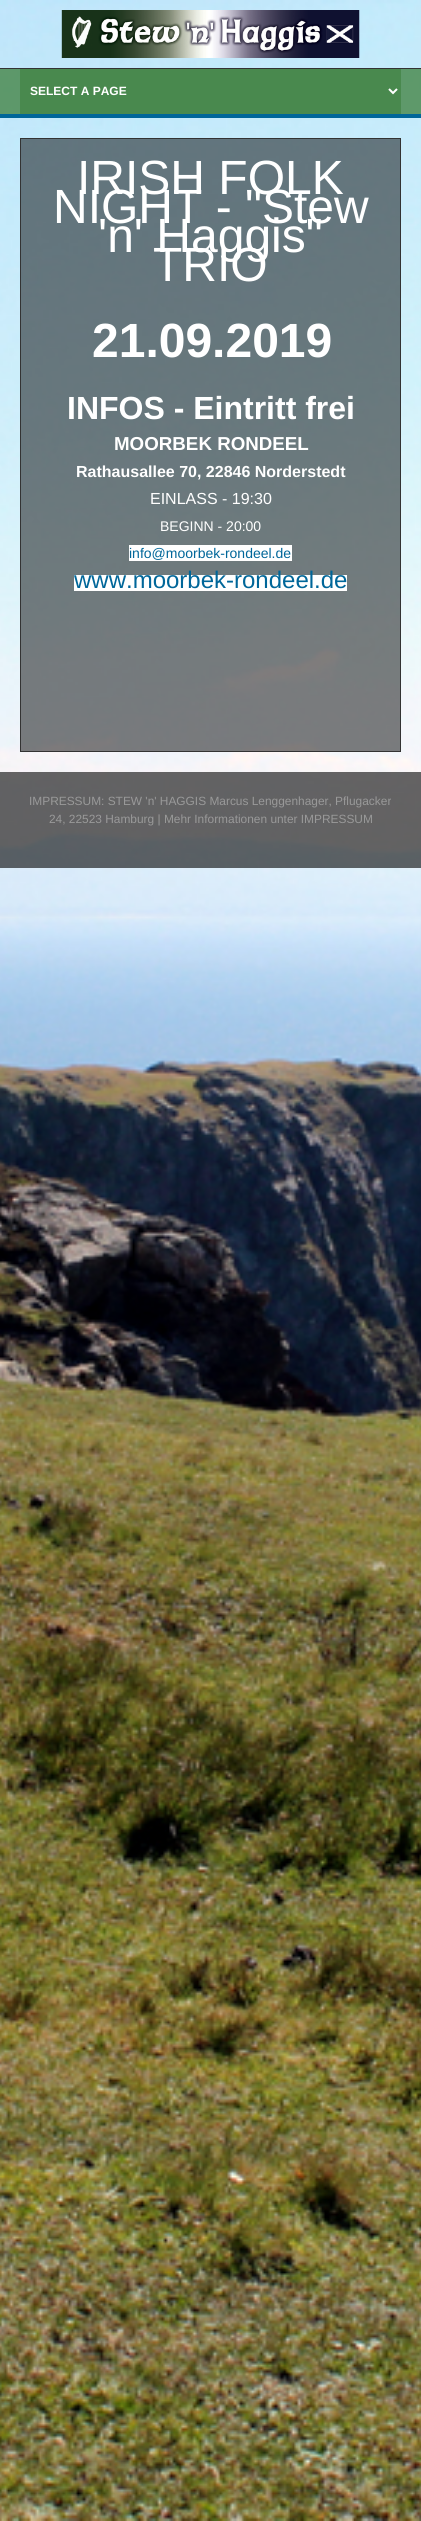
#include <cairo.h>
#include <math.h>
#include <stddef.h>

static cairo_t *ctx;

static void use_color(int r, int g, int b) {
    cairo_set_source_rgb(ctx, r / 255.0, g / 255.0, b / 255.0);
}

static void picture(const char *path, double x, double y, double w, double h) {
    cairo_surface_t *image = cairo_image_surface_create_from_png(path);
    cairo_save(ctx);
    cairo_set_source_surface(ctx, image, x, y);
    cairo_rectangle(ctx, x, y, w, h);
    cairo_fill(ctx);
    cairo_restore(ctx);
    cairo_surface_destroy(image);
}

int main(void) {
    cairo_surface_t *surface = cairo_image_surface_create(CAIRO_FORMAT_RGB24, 421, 2521);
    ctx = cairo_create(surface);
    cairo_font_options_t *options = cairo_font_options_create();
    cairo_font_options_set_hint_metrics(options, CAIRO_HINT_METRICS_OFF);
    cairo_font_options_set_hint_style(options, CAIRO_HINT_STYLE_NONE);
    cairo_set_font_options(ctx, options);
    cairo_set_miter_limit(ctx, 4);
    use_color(255, 255, 255);
    cairo_paint(ctx);
    picture("img1.png", 0, 0, 421, 2521);
    picture("img2.png", 61, 10, 299, 48);
    cairo_set_source_rgba(ctx, 0.267, 0.522, 0.278, 0.8);
    cairo_rectangle(ctx, 0, 69, 421, 45);
    cairo_fill(ctx);
    use_color(51, 51, 51);
    cairo_rectangle(ctx, 0, 68, 421, 1);
    cairo_fill(ctx);
    use_color(0, 102, 153);
    cairo_rectangle(ctx, 0, 114, 421, 4);
    cairo_fill(ctx);
    use_color(73, 137, 78);
    cairo_rectangle(ctx, 20, 69, 381, 45);
    cairo_fill(ctx);
    cairo_new_path(ctx);
    cairo_move_to(ctx, 389, 89);
    cairo_line_to(ctx, 393, 93);
    cairo_line_to(ctx, 397, 89);
    use_color(255, 255, 255);
    cairo_stroke(ctx);
    cairo_select_font_face(ctx, "Liberation Sans", CAIRO_FONT_SLANT_NORMAL, CAIRO_FONT_WEIGHT_BOLD);
    cairo_set_font_size(ctx, 12);
    cairo_move_to(ctx, 30, 95);
    cairo_show_text(ctx, "SELECT A PAGE");
    cairo_set_source_rgba(ctx, 0, 0, 0, 0.5);
    cairo_rectangle(ctx, 20.5, 138.5, 380, 613);
    cairo_fill_preserve(ctx);
    use_color(51, 51, 51);
    cairo_set_line_width(ctx, 1);
    cairo_stroke(ctx);
    cairo_select_font_face(ctx, "Liberation Sans", CAIRO_FONT_SLANT_NORMAL, CAIRO_FONT_WEIGHT_NORMAL);
    cairo_set_font_size(ctx, 48);
    use_color(255, 255, 255);
    cairo_move_to(ctx, 77, 194);
    cairo_show_text(ctx, "IRISH FOLK");
    cairo_move_to(ctx, 53, 223);
    cairo_show_text(ctx, "NIGHT - \"Stew");
    cairo_move_to(ctx, 98, 252);
    cairo_show_text(ctx, "'n' Haggis\"");
    cairo_move_to(ctx, 153, 281);
    cairo_show_text(ctx, "TRIO");
    cairo_select_font_face(ctx, "Liberation Sans", CAIRO_FONT_SLANT_NORMAL, CAIRO_FONT_WEIGHT_BOLD);
    cairo_move_to(ctx, 92, 357);
    cairo_show_text(ctx, "21.09.2019");
    cairo_set_font_size(ctx, 32);
    cairo_move_to(ctx, 67, 419);
    cairo_show_text(ctx, "INFOS - Eintritt frei");
    cairo_set_font_size(ctx, 18.75);
    cairo_move_to(ctx, 114, 450);
    cairo_show_text(ctx, "MOORBEK RONDEEL");
    cairo_set_font_size(ctx, 16);
    cairo_move_to(ctx, 76, 477);
    cairo_show_text(ctx, "Rathausallee 70, 22846 Norderstedt");
    cairo_select_font_face(ctx, "Liberation Sans", CAIRO_FONT_SLANT_NORMAL, CAIRO_FONT_WEIGHT_NORMAL);
    cairo_move_to(ctx, 150, 504);
    cairo_show_text(ctx, "EINLASS - 19:30");
    cairo_set_font_size(ctx, 14);
    cairo_move_to(ctx, 160, 531);
    cairo_show_text(ctx, "BEGINN - 20:00");
    cairo_rectangle(ctx, 129, 545, 163, 16);
    cairo_fill(ctx);
    use_color(0, 102, 153);
    cairo_move_to(ctx, 129, 558);
    cairo_show_text(ctx, "info@moorbek-rondeel.de");
    use_color(255, 255, 255);
    cairo_rectangle(ctx, 74, 575, 273, 16);
    cairo_fill(ctx);
    cairo_set_font_size(ctx, 24);
    use_color(0, 102, 153);
    cairo_move_to(ctx, 74, 588);
    cairo_show_text(ctx, "www.moorbek-rondeel.de");
    cairo_set_source_rgba(ctx, 0, 0, 0, 0.6);
    cairo_rectangle(ctx, 0, 772, 421, 96);
    cairo_fill(ctx);
    cairo_set_font_size(ctx, 11.9);
    use_color(153, 153, 153);
    cairo_move_to(ctx, 29, 805);
    cairo_show_text(ctx, "IMPRESSUM: STEW 'n' HAGGIS Marcus Lenggenhager, Pflugacker");
    cairo_move_to(ctx, 49, 823);
    cairo_show_text(ctx, "24, 22523 Hamburg | Mehr Informationen unter IMPRESSUM");
    cairo_surface_write_to_png(surface, "result.png");
    cairo_font_options_destroy(options);
    cairo_destroy(ctx);
    cairo_surface_destroy(surface);
    return 0;
}
